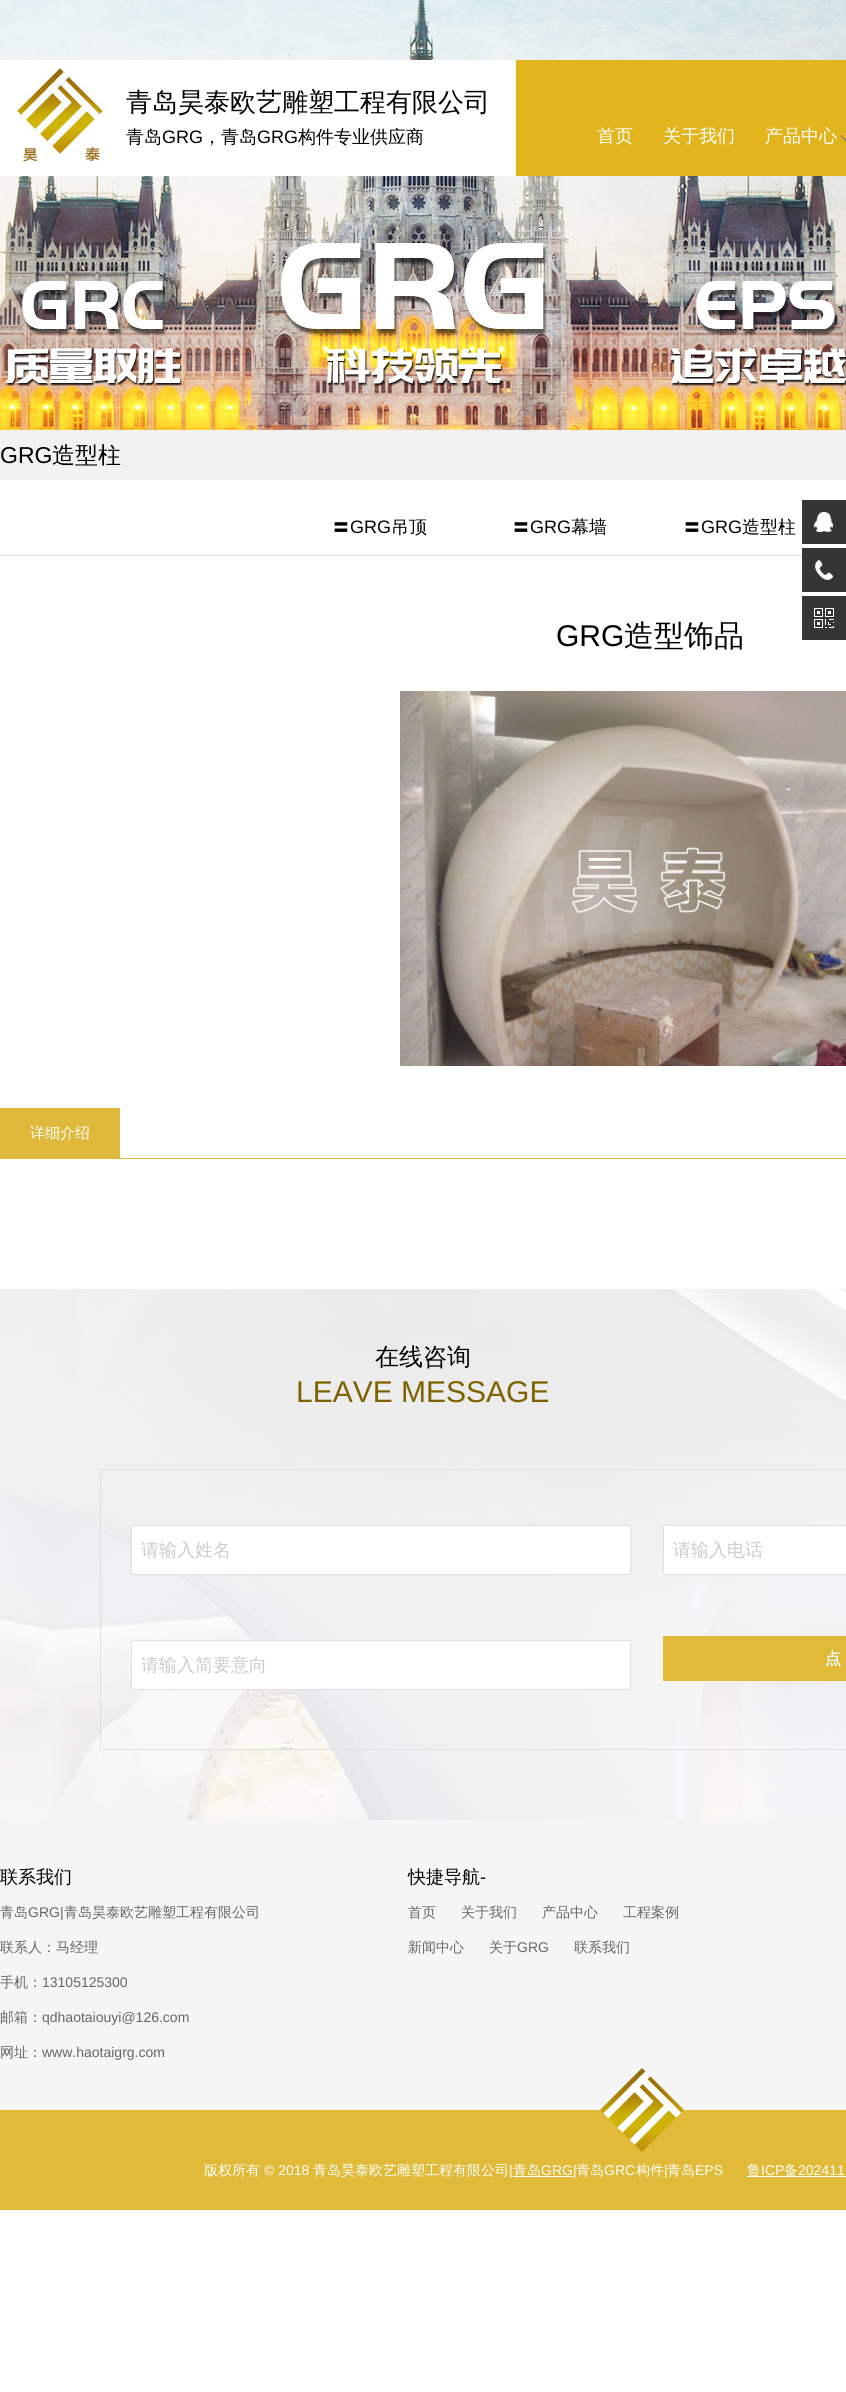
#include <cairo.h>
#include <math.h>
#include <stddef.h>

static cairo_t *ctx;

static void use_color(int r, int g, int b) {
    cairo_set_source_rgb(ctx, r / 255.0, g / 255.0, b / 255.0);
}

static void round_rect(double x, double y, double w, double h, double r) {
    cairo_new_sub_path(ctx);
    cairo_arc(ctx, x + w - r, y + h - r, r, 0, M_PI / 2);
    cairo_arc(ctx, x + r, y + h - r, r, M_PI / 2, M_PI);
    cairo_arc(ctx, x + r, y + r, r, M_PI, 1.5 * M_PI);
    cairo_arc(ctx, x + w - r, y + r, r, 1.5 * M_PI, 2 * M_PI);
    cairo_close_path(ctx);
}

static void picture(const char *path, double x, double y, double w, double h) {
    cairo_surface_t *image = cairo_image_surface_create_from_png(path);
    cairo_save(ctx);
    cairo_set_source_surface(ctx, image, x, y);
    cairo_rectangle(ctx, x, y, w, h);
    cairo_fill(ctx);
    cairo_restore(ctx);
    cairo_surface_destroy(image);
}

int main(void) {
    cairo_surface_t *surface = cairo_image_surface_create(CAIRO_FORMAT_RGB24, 846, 2392);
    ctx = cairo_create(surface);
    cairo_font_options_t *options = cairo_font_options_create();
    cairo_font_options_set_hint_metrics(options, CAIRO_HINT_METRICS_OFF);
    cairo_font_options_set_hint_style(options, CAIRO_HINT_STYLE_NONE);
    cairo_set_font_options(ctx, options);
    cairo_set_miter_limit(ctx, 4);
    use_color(255, 255, 255);
    cairo_paint(ctx);
    picture("img1.png", 0, 0, 846, 430);
    picture("img2.png", 0, 60, 846, 116);
    picture("img3.png", 16, 68, 88, 96);
    cairo_select_font_face(ctx, "WenQuanYi Zen Hei Medium", CAIRO_FONT_SLANT_NORMAL, CAIRO_FONT_WEIGHT_NORMAL);
    cairo_set_font_size(ctx, 26);
    use_color(0, 0, 0);
    cairo_move_to(ctx, 126, 111);
    cairo_show_text(ctx, "青岛昊泰欧艺雕塑工程有限公司");
    cairo_set_font_size(ctx, 18);
    cairo_move_to(ctx, 126, 143);
    cairo_show_text(ctx, "青岛");
    cairo_select_font_face(ctx, "Liberation Sans", CAIRO_FONT_SLANT_NORMAL, CAIRO_FONT_WEIGHT_NORMAL);
    cairo_move_to(ctx, 162, 143);
    cairo_show_text(ctx, "GRG");
    cairo_select_font_face(ctx, "WenQuanYi Zen Hei Medium", CAIRO_FONT_SLANT_NORMAL, CAIRO_FONT_WEIGHT_NORMAL);
    cairo_move_to(ctx, 203, 143);
    cairo_show_text(ctx, "，青岛");
    cairo_select_font_face(ctx, "Liberation Sans", CAIRO_FONT_SLANT_NORMAL, CAIRO_FONT_WEIGHT_NORMAL);
    cairo_move_to(ctx, 257, 143);
    cairo_show_text(ctx, "GRG");
    cairo_select_font_face(ctx, "WenQuanYi Zen Hei Medium", CAIRO_FONT_SLANT_NORMAL, CAIRO_FONT_WEIGHT_NORMAL);
    cairo_move_to(ctx, 298, 143);
    cairo_show_text(ctx, "构件专业供应商");
    use_color(255, 255, 255);
    cairo_move_to(ctx, 597, 142);
    cairo_show_text(ctx, "首页");
    cairo_move_to(ctx, 663, 142);
    cairo_show_text(ctx, "关于我们");
    cairo_move_to(ctx, 765, 142);
    cairo_show_text(ctx, "产品中心");
    picture("img4.png", 840, 135, 6, 6);
    use_color(242, 242, 242);
    cairo_rectangle(ctx, 0, 430, 846, 50);
    cairo_fill(ctx);
    cairo_select_font_face(ctx, "Liberation Sans", CAIRO_FONT_SLANT_NORMAL, CAIRO_FONT_WEIGHT_NORMAL);
    cairo_set_font_size(ctx, 23);
    use_color(0, 0, 0);
    cairo_move_to(ctx, 0, 463);
    cairo_show_text(ctx, "GRG");
    cairo_select_font_face(ctx, "WenQuanYi Zen Hei Medium", CAIRO_FONT_SLANT_NORMAL, CAIRO_FONT_WEIGHT_NORMAL);
    cairo_move_to(ctx, 52, 463);
    cairo_show_text(ctx, "造型柱");
    use_color(221, 221, 221);
    cairo_rectangle(ctx, 0, 555, 802, 1);
    cairo_fill(ctx);
    cairo_set_font_size(ctx, 18);
    use_color(0, 0, 0);
    cairo_move_to(ctx, 332, 533);
    cairo_show_text(ctx, "〓");
    cairo_select_font_face(ctx, "Liberation Sans", CAIRO_FONT_SLANT_NORMAL, CAIRO_FONT_WEIGHT_NORMAL);
    cairo_move_to(ctx, 350, 533);
    cairo_show_text(ctx, "GRG");
    cairo_select_font_face(ctx, "WenQuanYi Zen Hei Medium", CAIRO_FONT_SLANT_NORMAL, CAIRO_FONT_WEIGHT_NORMAL);
    cairo_move_to(ctx, 391, 533);
    cairo_show_text(ctx, "吊顶");
    cairo_move_to(ctx, 512, 533);
    cairo_show_text(ctx, "〓");
    cairo_select_font_face(ctx, "Liberation Sans", CAIRO_FONT_SLANT_NORMAL, CAIRO_FONT_WEIGHT_NORMAL);
    cairo_move_to(ctx, 530, 533);
    cairo_show_text(ctx, "GRG");
    cairo_select_font_face(ctx, "WenQuanYi Zen Hei Medium", CAIRO_FONT_SLANT_NORMAL, CAIRO_FONT_WEIGHT_NORMAL);
    cairo_move_to(ctx, 571, 533);
    cairo_show_text(ctx, "幕墙");
    cairo_move_to(ctx, 683, 533);
    cairo_show_text(ctx, "〓");
    cairo_select_font_face(ctx, "Liberation Sans", CAIRO_FONT_SLANT_NORMAL, CAIRO_FONT_WEIGHT_NORMAL);
    cairo_move_to(ctx, 701, 533);
    cairo_show_text(ctx, "GRG");
    cairo_select_font_face(ctx, "WenQuanYi Zen Hei Medium", CAIRO_FONT_SLANT_NORMAL, CAIRO_FONT_WEIGHT_NORMAL);
    cairo_move_to(ctx, 742, 533);
    cairo_show_text(ctx, "造型柱");
    use_color(53, 53, 53);
    cairo_rectangle(ctx, 802, 500, 44, 44);
    cairo_fill(ctx);
    picture("img5.png", 814, 512, 19, 20);
    cairo_rectangle(ctx, 802, 548, 44, 44);
    cairo_fill(ctx);
    picture("img6.png", 815, 560, 18, 20);
    cairo_rectangle(ctx, 802, 596, 44, 44);
    cairo_fill(ctx);
    picture("img7.png", 814, 608, 20, 20);
    cairo_select_font_face(ctx, "Liberation Sans", CAIRO_FONT_SLANT_NORMAL, CAIRO_FONT_WEIGHT_NORMAL);
    cairo_set_font_size(ctx, 30);
    use_color(0, 0, 0);
    cairo_move_to(ctx, 556, 646);
    cairo_show_text(ctx, "GRG");
    cairo_select_font_face(ctx, "WenQuanYi Zen Hei Medium", CAIRO_FONT_SLANT_NORMAL, CAIRO_FONT_WEIGHT_NORMAL);
    cairo_move_to(ctx, 624, 646);
    cairo_show_text(ctx, "造型饰品");
    picture("img8.png", 400, 691, 446, 375);
    use_color(223, 185, 60);
    cairo_rectangle(ctx, 0, 1108, 120, 50);
    cairo_fill(ctx);
    cairo_set_font_size(ctx, 15);
    use_color(255, 255, 255);
    cairo_move_to(ctx, 30, 1138);
    cairo_show_text(ctx, "详细介绍");
    use_color(223, 185, 60);
    cairo_rectangle(ctx, 0, 1158, 846, 1);
    cairo_fill(ctx);
    picture("img9.png", 0, 1289, 846, 531);
    cairo_set_font_size(ctx, 24);
    use_color(0, 0, 0);
    cairo_move_to(ctx, 375, 1365);
    cairo_show_text(ctx, "在线咨询");
    cairo_select_font_face(ctx, "Liberation Sans", CAIRO_FONT_SLANT_NORMAL, CAIRO_FONT_WEIGHT_NORMAL);
    cairo_set_font_size(ctx, 30);
    use_color(126, 98, 0);
    cairo_move_to(ctx, 296, 1402);
    cairo_show_text(ctx, "LEAVE MESSAGE");
    cairo_rectangle(ctx, 100.5, 1469.5, 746, 280);
    use_color(224, 224, 224);
    cairo_set_line_width(ctx, 1);
    cairo_stroke(ctx);
    use_color(255, 255, 255);
    round_rect(131.5, 1525.5, 499, 49, 1.5);
    cairo_fill_preserve(ctx);
    use_color(224, 224, 224);
    cairo_stroke(ctx);
    cairo_select_font_face(ctx, "WenQuanYi Zen Hei Medium", CAIRO_FONT_SLANT_NORMAL, CAIRO_FONT_WEIGHT_NORMAL);
    cairo_set_font_size(ctx, 18);
    use_color(204, 204, 204);
    cairo_move_to(ctx, 141, 1556);
    cairo_show_text(ctx, "请输入姓名");
    use_color(255, 255, 255);
    round_rect(663.5, 1525.5, 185, 49, 1.5);
    cairo_fill_preserve(ctx);
    use_color(224, 224, 224);
    cairo_stroke(ctx);
    use_color(204, 204, 204);
    cairo_move_to(ctx, 673, 1556);
    cairo_show_text(ctx, "请输入电话");
    use_color(255, 255, 255);
    round_rect(131.5, 1640.5, 499, 49, 1.5);
    cairo_fill_preserve(ctx);
    use_color(224, 224, 224);
    cairo_stroke(ctx);
    use_color(204, 204, 204);
    cairo_move_to(ctx, 141, 1671);
    cairo_show_text(ctx, "请输入简要意向");
    use_color(224, 186, 56);
    cairo_rectangle(ctx, 663, 1636, 183, 45);
    cairo_fill(ctx);
    cairo_select_font_face(ctx, "WenQuanYi Zen Hei", CAIRO_FONT_SLANT_NORMAL, CAIRO_FONT_WEIGHT_BOLD);
    cairo_set_font_size(ctx, 16);
    use_color(255, 255, 255);
    cairo_move_to(ctx, 825, 1664);
    cairo_show_text(ctx, "点");
    use_color(245, 245, 245);
    cairo_rectangle(ctx, 0, 1820, 846, 290);
    cairo_fill(ctx);
    cairo_select_font_face(ctx, "WenQuanYi Zen Hei Medium", CAIRO_FONT_SLANT_NORMAL, CAIRO_FONT_WEIGHT_NORMAL);
    cairo_set_font_size(ctx, 18);
    use_color(0, 0, 0);
    cairo_move_to(ctx, 0, 1883);
    cairo_show_text(ctx, "联系我们");
    cairo_set_font_size(ctx, 14);
    use_color(102, 102, 102);
    cairo_move_to(ctx, 0, 1917);
    cairo_show_text(ctx, "青岛");
    cairo_select_font_face(ctx, "Liberation Sans", CAIRO_FONT_SLANT_NORMAL, CAIRO_FONT_WEIGHT_NORMAL);
    cairo_move_to(ctx, 28, 1917);
    cairo_show_text(ctx, "GRG|");
    cairo_select_font_face(ctx, "WenQuanYi Zen Hei Medium", CAIRO_FONT_SLANT_NORMAL, CAIRO_FONT_WEIGHT_NORMAL);
    cairo_move_to(ctx, 64, 1917);
    cairo_show_text(ctx, "青岛昊泰欧艺雕塑工程有限公司");
    cairo_move_to(ctx, 0, 1952);
    cairo_show_text(ctx, "联系人：马经理");
    cairo_move_to(ctx, 0, 1987);
    cairo_show_text(ctx, "手机：");
    cairo_select_font_face(ctx, "Liberation Sans", CAIRO_FONT_SLANT_NORMAL, CAIRO_FONT_WEIGHT_NORMAL);
    cairo_move_to(ctx, 42, 1987);
    cairo_show_text(ctx, "13105125300");
    cairo_select_font_face(ctx, "WenQuanYi Zen Hei Medium", CAIRO_FONT_SLANT_NORMAL, CAIRO_FONT_WEIGHT_NORMAL);
    cairo_move_to(ctx, 0, 2022);
    cairo_show_text(ctx, "邮箱：");
    cairo_select_font_face(ctx, "Liberation Sans", CAIRO_FONT_SLANT_NORMAL, CAIRO_FONT_WEIGHT_NORMAL);
    cairo_move_to(ctx, 42, 2022);
    cairo_show_text(ctx, "qdhaotaiouyi@126.com");
    cairo_select_font_face(ctx, "WenQuanYi Zen Hei Medium", CAIRO_FONT_SLANT_NORMAL, CAIRO_FONT_WEIGHT_NORMAL);
    cairo_move_to(ctx, 0, 2057);
    cairo_show_text(ctx, "网址：");
    cairo_select_font_face(ctx, "Liberation Sans", CAIRO_FONT_SLANT_NORMAL, CAIRO_FONT_WEIGHT_NORMAL);
    cairo_move_to(ctx, 42, 2057);
    cairo_show_text(ctx, "www.haotaigrg.com");
    cairo_select_font_face(ctx, "WenQuanYi Zen Hei Medium", CAIRO_FONT_SLANT_NORMAL, CAIRO_FONT_WEIGHT_NORMAL);
    cairo_set_font_size(ctx, 18);
    use_color(0, 0, 0);
    cairo_move_to(ctx, 408, 1883);
    cairo_show_text(ctx, "快捷导航");
    cairo_select_font_face(ctx, "Liberation Sans", CAIRO_FONT_SLANT_NORMAL, CAIRO_FONT_WEIGHT_NORMAL);
    cairo_move_to(ctx, 480, 1883);
    cairo_show_text(ctx, "-");
    cairo_select_font_face(ctx, "WenQuanYi Zen Hei Medium", CAIRO_FONT_SLANT_NORMAL, CAIRO_FONT_WEIGHT_NORMAL);
    cairo_set_font_size(ctx, 14);
    use_color(102, 102, 102);
    cairo_move_to(ctx, 408, 1917);
    cairo_show_text(ctx, "首页");
    cairo_move_to(ctx, 461, 1917);
    cairo_show_text(ctx, "关于我们");
    cairo_move_to(ctx, 542, 1917);
    cairo_show_text(ctx, "产品中心");
    cairo_move_to(ctx, 623, 1917);
    cairo_show_text(ctx, "工程案例");
    cairo_move_to(ctx, 408, 1952);
    cairo_show_text(ctx, "新闻中心");
    cairo_move_to(ctx, 489, 1952);
    cairo_show_text(ctx, "关于");
    cairo_select_font_face(ctx, "Liberation Sans", CAIRO_FONT_SLANT_NORMAL, CAIRO_FONT_WEIGHT_NORMAL);
    cairo_move_to(ctx, 517, 1952);
    cairo_show_text(ctx, "GRG");
    cairo_select_font_face(ctx, "WenQuanYi Zen Hei Medium", CAIRO_FONT_SLANT_NORMAL, CAIRO_FONT_WEIGHT_NORMAL);
    cairo_move_to(ctx, 574, 1952);
    cairo_show_text(ctx, "联系我们");
    use_color(224, 186, 56);
    cairo_rectangle(ctx, 0, 2110, 846, 100);
    cairo_fill(ctx);
    picture("img10.png", 600, 2068, 84, 84);
    use_color(255, 255, 255);
    cairo_move_to(ctx, 204, 2175);
    cairo_show_text(ctx, "版权所有");
    cairo_select_font_face(ctx, "Liberation Sans", CAIRO_FONT_SLANT_NORMAL, CAIRO_FONT_WEIGHT_NORMAL);
    cairo_move_to(ctx, 264, 2175);
    cairo_show_text(ctx, "© 2018");
    cairo_select_font_face(ctx, "WenQuanYi Zen Hei Medium", CAIRO_FONT_SLANT_NORMAL, CAIRO_FONT_WEIGHT_NORMAL);
    cairo_move_to(ctx, 313, 2175);
    cairo_show_text(ctx, "青岛昊泰欧艺雕塑工程有限公司");
    cairo_select_font_face(ctx, "Liberation Sans", CAIRO_FONT_SLANT_NORMAL, CAIRO_FONT_WEIGHT_NORMAL);
    cairo_move_to(ctx, 509, 2175);
    cairo_show_text(ctx, "|");
    cairo_rectangle(ctx, 513, 2176, 60, 1);
    cairo_fill(ctx);
    cairo_select_font_face(ctx, "WenQuanYi Zen Hei Medium", CAIRO_FONT_SLANT_NORMAL, CAIRO_FONT_WEIGHT_NORMAL);
    cairo_move_to(ctx, 513, 2175);
    cairo_show_text(ctx, "青岛");
    cairo_select_font_face(ctx, "Liberation Sans", CAIRO_FONT_SLANT_NORMAL, CAIRO_FONT_WEIGHT_NORMAL);
    cairo_move_to(ctx, 541, 2175);
    cairo_show_text(ctx, "GRG|");
    cairo_select_font_face(ctx, "WenQuanYi Zen Hei Medium", CAIRO_FONT_SLANT_NORMAL, CAIRO_FONT_WEIGHT_NORMAL);
    cairo_move_to(ctx, 576, 2175);
    cairo_show_text(ctx, "青岛");
    cairo_select_font_face(ctx, "Liberation Sans", CAIRO_FONT_SLANT_NORMAL, CAIRO_FONT_WEIGHT_NORMAL);
    cairo_move_to(ctx, 604, 2175);
    cairo_show_text(ctx, "GRC");
    cairo_select_font_face(ctx, "WenQuanYi Zen Hei Medium", CAIRO_FONT_SLANT_NORMAL, CAIRO_FONT_WEIGHT_NORMAL);
    cairo_move_to(ctx, 636, 2175);
    cairo_show_text(ctx, "构件");
    cairo_select_font_face(ctx, "Liberation Sans", CAIRO_FONT_SLANT_NORMAL, CAIRO_FONT_WEIGHT_NORMAL);
    cairo_move_to(ctx, 664, 2175);
    cairo_show_text(ctx, "|");
    cairo_select_font_face(ctx, "WenQuanYi Zen Hei Medium", CAIRO_FONT_SLANT_NORMAL, CAIRO_FONT_WEIGHT_NORMAL);
    cairo_move_to(ctx, 667, 2175);
    cairo_show_text(ctx, "青岛");
    cairo_select_font_face(ctx, "Liberation Sans", CAIRO_FONT_SLANT_NORMAL, CAIRO_FONT_WEIGHT_NORMAL);
    cairo_move_to(ctx, 695, 2175);
    cairo_show_text(ctx, "EPS");
    cairo_rectangle(ctx, 747, 2176, 99, 1);
    cairo_fill(ctx);
    cairo_select_font_face(ctx, "WenQuanYi Zen Hei Medium", CAIRO_FONT_SLANT_NORMAL, CAIRO_FONT_WEIGHT_NORMAL);
    cairo_move_to(ctx, 747, 2175);
    cairo_show_text(ctx, "鲁");
    cairo_select_font_face(ctx, "Liberation Sans", CAIRO_FONT_SLANT_NORMAL, CAIRO_FONT_WEIGHT_NORMAL);
    cairo_move_to(ctx, 761, 2175);
    cairo_show_text(ctx, "ICP");
    cairo_select_font_face(ctx, "WenQuanYi Zen Hei Medium", CAIRO_FONT_SLANT_NORMAL, CAIRO_FONT_WEIGHT_NORMAL);
    cairo_move_to(ctx, 784, 2175);
    cairo_show_text(ctx, "备");
    cairo_select_font_face(ctx, "Liberation Sans", CAIRO_FONT_SLANT_NORMAL, CAIRO_FONT_WEIGHT_NORMAL);
    cairo_move_to(ctx, 798, 2175);
    cairo_show_text(ctx, "202411");
    cairo_surface_write_to_png(surface, "result.png");
    cairo_font_options_destroy(options);
    cairo_destroy(ctx);
    cairo_surface_destroy(surface);
    return 0;
}
